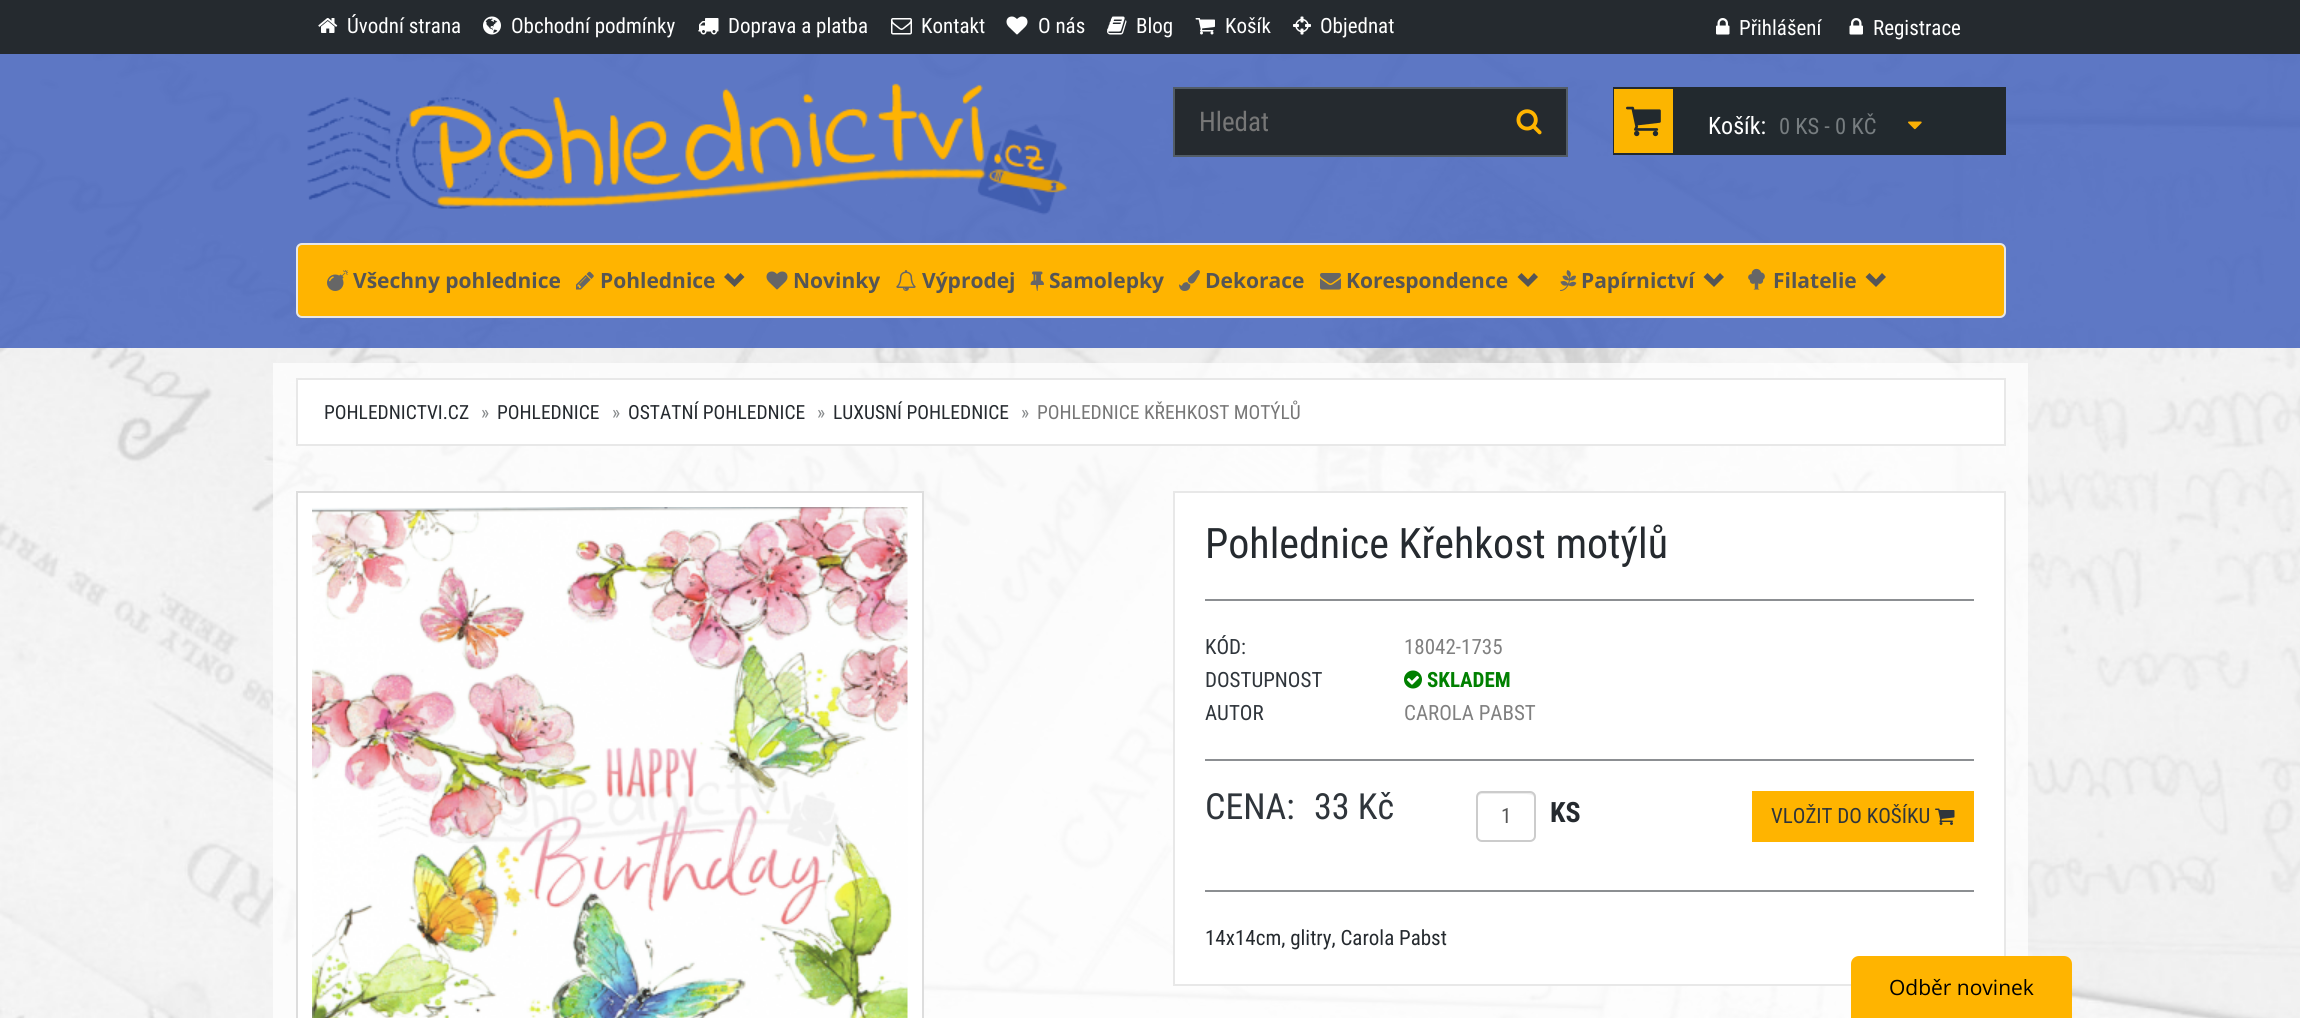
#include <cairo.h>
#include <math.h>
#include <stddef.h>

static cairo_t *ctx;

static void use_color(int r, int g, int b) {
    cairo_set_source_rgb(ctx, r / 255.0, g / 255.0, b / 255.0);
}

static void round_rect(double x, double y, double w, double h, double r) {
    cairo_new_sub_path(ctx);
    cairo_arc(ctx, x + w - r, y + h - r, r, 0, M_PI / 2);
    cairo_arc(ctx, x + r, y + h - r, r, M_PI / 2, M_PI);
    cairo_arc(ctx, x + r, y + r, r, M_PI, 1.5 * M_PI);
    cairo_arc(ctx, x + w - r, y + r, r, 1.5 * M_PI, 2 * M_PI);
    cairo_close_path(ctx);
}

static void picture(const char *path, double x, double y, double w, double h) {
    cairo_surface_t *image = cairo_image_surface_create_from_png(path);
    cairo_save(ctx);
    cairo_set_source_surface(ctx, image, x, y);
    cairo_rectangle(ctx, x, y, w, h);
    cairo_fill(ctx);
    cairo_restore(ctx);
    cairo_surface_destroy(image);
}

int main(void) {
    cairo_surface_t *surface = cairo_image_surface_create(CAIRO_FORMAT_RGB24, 2300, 1018);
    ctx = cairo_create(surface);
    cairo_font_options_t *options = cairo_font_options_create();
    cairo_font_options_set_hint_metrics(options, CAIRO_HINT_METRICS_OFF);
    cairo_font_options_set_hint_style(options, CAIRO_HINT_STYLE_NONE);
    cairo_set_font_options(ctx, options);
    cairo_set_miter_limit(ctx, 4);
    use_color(255, 255, 255);
    cairo_paint(ctx);
    picture("img1.png", 0, 54, 2300, 964);
    cairo_set_source_rgba(ctx, 0.263, 0.384, 0.741, 0.84);
    cairo_rectangle(ctx, 0, 54, 2300, 294);
    cairo_fill(ctx);
    use_color(37, 42, 47);
    cairo_rectangle(ctx, 0, 0, 2300, 54);
    cairo_fill(ctx);
    picture("img2.png", 318, 18, 20, 15);
    cairo_select_font_face(ctx, "Roboto Condensed", CAIRO_FONT_SLANT_NORMAL, CAIRO_FONT_WEIGHT_NORMAL);
    cairo_set_font_size(ctx, 21);
    use_color(255, 255, 255);
    cairo_move_to(ctx, 347, 33);
    cairo_show_text(ctx, "Úvodní strana");
    picture("img3.png", 483, 16, 18, 19);
    cairo_move_to(ctx, 511, 33);
    cairo_show_text(ctx, "Obchodní podmínky");
    picture("img4.png", 698, 18, 21, 17);
    cairo_move_to(ctx, 728, 33);
    cairo_show_text(ctx, "Doprava a platba");
    picture("img5.png", 891, 18, 21, 17);
    cairo_move_to(ctx, 921, 33);
    cairo_show_text(ctx, "Kontakt");
    picture("img6.png", 1006, 16, 22, 19);
    cairo_move_to(ctx, 1038, 33);
    cairo_show_text(ctx, "O nás");
    picture("img7.png", 1107, 16, 20, 19);
    cairo_move_to(ctx, 1136, 33);
    cairo_show_text(ctx, "Blog");
    picture("img8.png", 1195, 18, 20, 17);
    cairo_move_to(ctx, 1225, 33);
    cairo_show_text(ctx, "Košík");
    picture("img9.png", 1293, 16, 18, 19);
    cairo_move_to(ctx, 1320, 33);
    cairo_show_text(ctx, "Objednat");
    picture("img10.png", 1716, 18, 14, 17);
    cairo_move_to(ctx, 1739, 35);
    cairo_show_text(ctx, "Přihlášení");
    picture("img11.png", 1849, 18, 14, 17);
    cairo_move_to(ctx, 1873, 35);
    cairo_show_text(ctx, "Registrace");
    picture("img12.png", 307, 83, 760, 132);
    use_color(37, 42, 47);
    cairo_rectangle(ctx, 1175, 89, 391, 66);
    cairo_fill(ctx);
    use_color(82, 92, 102);
    cairo_rectangle(ctx, 1173, 87, 395, 2);
    cairo_fill(ctx);
    cairo_rectangle(ctx, 1566, 87, 2, 69);
    cairo_fill(ctx);
    cairo_rectangle(ctx, 1173, 155, 395, 2);
    cairo_fill(ctx);
    picture("img13.png", 1516, 109, 26, 26);
    cairo_rectangle(ctx, 1173, 87, 2, 69);
    cairo_fill(ctx);
    cairo_set_font_size(ctx, 27);
    use_color(119, 119, 119);
    cairo_move_to(ctx, 1199, 131);
    cairo_show_text(ctx, "Hledat");
    use_color(34, 41, 46);
    cairo_rectangle(ctx, 1613, 87, 393, 68);
    cairo_fill(ctx);
    use_color(252, 181, 0);
    cairo_rectangle(ctx, 1614, 89, 59, 64);
    cairo_fill(ctx);
    picture("img14.png", 1626, 106, 35, 31);
    cairo_set_font_size(ctx, 24);
    use_color(255, 255, 255);
    cairo_move_to(ctx, 1708, 134);
    cairo_show_text(ctx, "Košík:");
    cairo_set_font_size(ctx, 22.5);
    use_color(119, 125, 128);
    cairo_move_to(ctx, 1779, 134);
    cairo_show_text(ctx, "0 KS - 0 KČ");
    picture("img15.png", 1908, 121, 14, 9);
    use_color(255, 180, 0);
    round_rect(297, 244, 1708, 73, 5);
    cairo_fill_preserve(ctx);
    use_color(231, 231, 231);
    cairo_stroke(ctx);
    picture("img16.png", 327, 270, 21, 21);
    cairo_select_font_face(ctx, "Open Sans", CAIRO_FONT_SLANT_NORMAL, CAIRO_FONT_WEIGHT_BOLD);
    cairo_set_font_size(ctx, 21);
    use_color(85, 85, 85);
    cairo_move_to(ctx, 353, 288);
    cairo_show_text(ctx, "Všechny pohlednice");
    picture("img17.png", 576, 271, 18, 19);
    cairo_move_to(ctx, 600, 288);
    cairo_show_text(ctx, "Pohlednice");
    cairo_new_path(ctx);
    cairo_move_to(ctx, 724, 277);
    cairo_line_to(ctx, 734.5, 287);
    cairo_line_to(ctx, 744.5, 277);
    cairo_line_to(ctx, 740.5, 273);
    cairo_line_to(ctx, 734.5, 279.5);
    cairo_line_to(ctx, 728, 273);
    cairo_close_path(ctx);
    cairo_fill(ctx);
    picture("img18.png", 766, 271, 22, 19);
    cairo_move_to(ctx, 793, 288);
    cairo_show_text(ctx, "Novinky");
    picture("img19.png", 896, 270, 20, 21);
    cairo_move_to(ctx, 922, 288);
    cairo_show_text(ctx, "Výprodej");
    picture("img20.png", 1030, 271, 14, 20);
    cairo_move_to(ctx, 1049, 288);
    cairo_show_text(ctx, "Samolepky");
    picture("img21.png", 1179, 270, 21, 21);
    cairo_move_to(ctx, 1205, 288);
    cairo_show_text(ctx, "Dekorace");
    picture("img22.png", 1320, 273, 21, 17);
    cairo_move_to(ctx, 1346, 288);
    cairo_show_text(ctx, "Korespondence");
    cairo_new_path(ctx);
    cairo_move_to(ctx, 1517.5, 277);
    cairo_line_to(ctx, 1528, 287);
    cairo_line_to(ctx, 1538, 277);
    cairo_line_to(ctx, 1534, 273);
    cairo_line_to(ctx, 1528, 279.5);
    cairo_line_to(ctx, 1521.5, 273);
    cairo_close_path(ctx);
    cairo_fill(ctx);
    picture("img23.png", 1560, 270, 17, 21);
    cairo_move_to(ctx, 1581, 288);
    cairo_show_text(ctx, "Papírnictví");
    cairo_new_path(ctx);
    cairo_move_to(ctx, 1703.5, 277);
    cairo_line_to(ctx, 1714, 287);
    cairo_line_to(ctx, 1724, 277);
    cairo_line_to(ctx, 1720, 273);
    cairo_line_to(ctx, 1714, 279.5);
    cairo_line_to(ctx, 1707.5, 273);
    cairo_close_path(ctx);
    cairo_fill(ctx);
    picture("img24.png", 1748, 268, 17, 22);
    cairo_move_to(ctx, 1773, 288);
    cairo_show_text(ctx, "Filatelie");
    cairo_new_path(ctx);
    cairo_move_to(ctx, 1865.5, 277);
    cairo_line_to(ctx, 1876, 287);
    cairo_line_to(ctx, 1886, 277);
    cairo_line_to(ctx, 1882, 273);
    cairo_line_to(ctx, 1876, 279.5);
    cairo_line_to(ctx, 1869.5, 273);
    cairo_close_path(ctx);
    cairo_fill(ctx);
    cairo_set_source_rgba(ctx, 1, 1, 1, 0.75);
    cairo_rectangle(ctx, 273, 363, 1755, 655);
    cairo_fill(ctx);
    use_color(255, 255, 255);
    cairo_rectangle(ctx, 297, 379, 1708, 66);
    cairo_fill_preserve(ctx);
    use_color(232, 232, 232);
    cairo_stroke(ctx);
    cairo_select_font_face(ctx, "Roboto Condensed", CAIRO_FONT_SLANT_NORMAL, CAIRO_FONT_WEIGHT_NORMAL);
    cairo_set_font_size(ctx, 19.5);
    use_color(37, 42, 47);
    cairo_move_to(ctx, 324, 419);
    cairo_show_text(ctx, "POHLEDNICTVI.CZ");
    use_color(135, 138, 140);
    cairo_move_to(ctx, 481, 419);
    cairo_show_text(ctx, "»");
    use_color(37, 42, 47);
    cairo_move_to(ctx, 497, 419);
    cairo_show_text(ctx, "POHLEDNICE");
    use_color(135, 138, 140);
    cairo_move_to(ctx, 612, 419);
    cairo_show_text(ctx, "»");
    use_color(37, 42, 47);
    cairo_move_to(ctx, 628, 419);
    cairo_show_text(ctx, "OSTATNÍ POHLEDNICE");
    use_color(135, 138, 140);
    cairo_move_to(ctx, 817, 419);
    cairo_show_text(ctx, "»");
    use_color(37, 42, 47);
    cairo_move_to(ctx, 833, 419);
    cairo_show_text(ctx, "LUXUSNÍ POHLEDNICE");
    use_color(135, 138, 140);
    cairo_move_to(ctx, 1021, 419);
    cairo_show_text(ctx, "»");
    use_color(119, 119, 119);
    cairo_move_to(ctx, 1037, 419);
    cairo_show_text(ctx, "POHLEDNICE KŘEHKOST MOTÝLŮ");
    use_color(255, 255, 255);
    cairo_rectangle(ctx, 297, 492, 626, 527);
    cairo_fill_preserve(ctx);
    use_color(221, 221, 221);
    cairo_stroke(ctx);
    picture("img25.png", 312, 507, 596, 511);
    use_color(255, 255, 255);
    cairo_rectangle(ctx, 1174, 492, 831, 493);
    cairo_fill_preserve(ctx);
    use_color(232, 232, 232);
    cairo_stroke(ctx);
    cairo_set_font_size(ctx, 42);
    use_color(37, 42, 47);
    cairo_move_to(ctx, 1205, 558);
    cairo_show_text(ctx, "Pohlednice Křehkost motýlů");
    use_color(140, 143, 146);
    cairo_rectangle(ctx, 1205, 599, 769, 2);
    cairo_fill(ctx);
    cairo_set_font_size(ctx, 21);
    use_color(47, 53, 59);
    cairo_move_to(ctx, 1205, 654);
    cairo_show_text(ctx, "KÓD:");
    use_color(128, 128, 128);
    cairo_move_to(ctx, 1404, 654);
    cairo_show_text(ctx, "18042-1735");
    use_color(47, 53, 59);
    cairo_move_to(ctx, 1205, 687);
    cairo_show_text(ctx, "DOSTUPNOST");
    picture("img26.png", 1404, 670, 18, 19);
    cairo_select_font_face(ctx, "Roboto Condensed", CAIRO_FONT_SLANT_NORMAL, CAIRO_FONT_WEIGHT_BOLD);
    use_color(0, 128, 0);
    cairo_move_to(ctx, 1427, 687);
    cairo_show_text(ctx, "SKLADEM");
    cairo_select_font_face(ctx, "Roboto Condensed", CAIRO_FONT_SLANT_NORMAL, CAIRO_FONT_WEIGHT_NORMAL);
    use_color(47, 53, 59);
    cairo_move_to(ctx, 1205, 720);
    cairo_show_text(ctx, "AUTOR");
    use_color(128, 128, 128);
    cairo_move_to(ctx, 1404, 720);
    cairo_show_text(ctx, "CAROLA PABST");
    use_color(140, 143, 146);
    cairo_rectangle(ctx, 1205, 759, 769, 2);
    cairo_fill(ctx);
    cairo_set_font_size(ctx, 36);
    use_color(47, 53, 59);
    cairo_move_to(ctx, 1205, 819);
    cairo_show_text(ctx, "CENA:");
    cairo_move_to(ctx, 1314, 819);
    cairo_show_text(ctx, "33 Kč");
    use_color(236, 236, 236);
    cairo_new_path(ctx);
    cairo_move_to(ctx, 1482, 794);
    cairo_line_to(ctx, 1522, 794);
    cairo_curve_to(ctx, 1537, 794, 1534, 795, 1534, 811);
    cairo_line_to(ctx, 1534, 838);
    cairo_curve_to(ctx, 1536, 836, 1535, 831, 1535, 829);
    cairo_line_to(ctx, 1535, 816);
    cairo_curve_to(ctx, 1535, 790, 1540, 792, 1514, 792);
    cairo_line_to(ctx, 1491, 792);
    cairo_curve_to(ctx, 1485, 792, 1478, 790, 1478, 798);
    cairo_curve_to(ctx, 1478, 796, 1480, 794, 1482, 794);
    cairo_close_path(ctx);
    cairo_fill(ctx);
    round_rect(1477, 792, 58, 49, 5);
    use_color(204, 204, 204);
    cairo_stroke(ctx);
    cairo_set_font_size(ctx, 21);
    use_color(85, 85, 85);
    cairo_move_to(ctx, 1501, 823);
    cairo_show_text(ctx, "1");
    cairo_select_font_face(ctx, "Roboto Condensed", CAIRO_FONT_SLANT_NORMAL, CAIRO_FONT_WEIGHT_BOLD);
    cairo_set_font_size(ctx, 28);
    use_color(37, 42, 47);
    cairo_move_to(ctx, 1550, 822);
    cairo_show_text(ctx, "KS");
    use_color(255, 180, 0);
    cairo_rectangle(ctx, 1752, 791, 222, 51);
    cairo_fill(ctx);
    cairo_select_font_face(ctx, "Roboto Condensed", CAIRO_FONT_SLANT_NORMAL, CAIRO_FONT_WEIGHT_NORMAL);
    cairo_set_font_size(ctx, 21);
    use_color(47, 53, 59);
    cairo_move_to(ctx, 1771, 823);
    cairo_show_text(ctx, "VLOŽIT DO KOŠÍKU");
    picture("img27.png", 1935, 808, 20, 17);
    use_color(140, 143, 146);
    cairo_rectangle(ctx, 1205, 890, 769, 2);
    cairo_fill(ctx);
    use_color(37, 42, 47);
    cairo_move_to(ctx, 1205, 945);
    cairo_show_text(ctx, "14x14cm, glitry, Carola Pabst");
    use_color(255, 180, 0);
    cairo_new_path(ctx);
    cairo_move_to(ctx, 1859, 956);
    cairo_line_to(ctx, 2064, 956);
    cairo_curve_to(ctx, 2068.5, 956, 2072, 959.5, 2072, 964);
    cairo_line_to(ctx, 2072, 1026);
    cairo_line_to(ctx, 1851, 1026);
    cairo_line_to(ctx, 1851, 964);
    cairo_curve_to(ctx, 1851, 959.5, 1854.5, 956, 1859, 956);
    cairo_close_path(ctx);
    cairo_fill(ctx);
    cairo_select_font_face(ctx, "Open Sans", CAIRO_FONT_SLANT_NORMAL, CAIRO_FONT_WEIGHT_NORMAL);
    use_color(0, 0, 0);
    cairo_move_to(ctx, 1889, 995);
    cairo_show_text(ctx, "Odběr novinek");
    cairo_surface_write_to_png(surface, "result.png");
    cairo_font_options_destroy(options);
    cairo_destroy(ctx);
    cairo_surface_destroy(surface);
    return 0;
}
